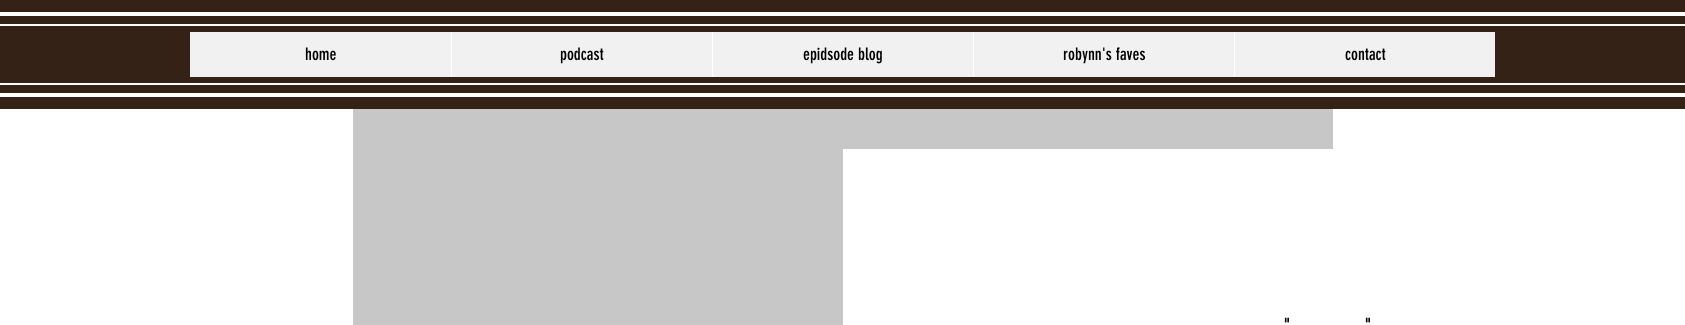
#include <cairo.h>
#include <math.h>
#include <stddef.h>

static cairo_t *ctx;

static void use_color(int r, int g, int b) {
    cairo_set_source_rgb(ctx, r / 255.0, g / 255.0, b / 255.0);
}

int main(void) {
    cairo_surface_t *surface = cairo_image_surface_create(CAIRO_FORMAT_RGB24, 1685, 325);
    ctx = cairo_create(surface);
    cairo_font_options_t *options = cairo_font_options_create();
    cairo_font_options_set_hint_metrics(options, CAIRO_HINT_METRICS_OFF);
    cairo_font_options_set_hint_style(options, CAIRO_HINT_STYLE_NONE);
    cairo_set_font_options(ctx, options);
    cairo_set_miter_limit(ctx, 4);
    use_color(255, 255, 255);
    cairo_paint(ctx);
    use_color(52, 34, 22);
    cairo_rectangle(ctx, 0, 0, 1685, 109);
    cairo_fill(ctx);
    use_color(255, 255, 255);
    cairo_rectangle(ctx, 0, 12, 1685, 4);
    cairo_fill(ctx);
    cairo_rectangle(ctx, 0, 93, 1685, 4);
    cairo_fill(ctx);
    cairo_rectangle(ctx, 0, 24, 1685, 2);
    cairo_fill(ctx);
    cairo_rectangle(ctx, 0, 83, 1685, 2);
    cairo_fill(ctx);
    use_color(241, 241, 241);
    cairo_rectangle(ctx, 190, 32, 1305, 45);
    cairo_fill(ctx);
    cairo_select_font_face(ctx, "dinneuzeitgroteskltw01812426", CAIRO_FONT_SLANT_NORMAL, CAIRO_FONT_WEIGHT_NORMAL);
    cairo_set_font_size(ctx, 17);
    use_color(0, 0, 0);
    cairo_move_to(ctx, 305, 60);
    cairo_show_text(ctx, "home");
    use_color(255, 255, 255);
    cairo_rectangle(ctx, 451, 32, 1, 45);
    cairo_fill(ctx);
    use_color(0, 0, 0);
    cairo_move_to(ctx, 560, 60);
    cairo_show_text(ctx, "podcast");
    use_color(255, 255, 255);
    cairo_rectangle(ctx, 712, 32, 1, 45);
    cairo_fill(ctx);
    use_color(0, 0, 0);
    cairo_move_to(ctx, 803, 60);
    cairo_show_text(ctx, "epidsode blog");
    use_color(255, 255, 255);
    cairo_rectangle(ctx, 973, 32, 1, 45);
    cairo_fill(ctx);
    use_color(0, 0, 0);
    cairo_move_to(ctx, 1063, 60);
    cairo_show_text(ctx, "robynn's faves");
    use_color(255, 255, 255);
    cairo_rectangle(ctx, 1234, 32, 1, 45);
    cairo_fill(ctx);
    use_color(0, 0, 0);
    cairo_move_to(ctx, 1345, 60);
    cairo_show_text(ctx, "contact");
    use_color(199, 199, 199);
    cairo_rectangle(ctx, 353, 109, 980, 216);
    cairo_fill(ctx);
    use_color(255, 255, 255);
    cairo_rectangle(ctx, 843, 149, 490, 176);
    cairo_fill(ctx);
    cairo_select_font_face(ctx, "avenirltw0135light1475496", CAIRO_FONT_SLANT_NORMAL, CAIRO_FONT_WEIGHT_BOLD);
    cairo_set_font_size(ctx, 18);
    use_color(0, 0, 0);
    cairo_move_to(ctx, 1282, 331);
    cairo_show_text(ctx, "\"");
    cairo_move_to(ctx, 1363, 331);
    cairo_show_text(ctx, "\"");
    cairo_surface_write_to_png(surface, "result.png");
    cairo_font_options_destroy(options);
    cairo_destroy(ctx);
    cairo_surface_destroy(surface);
    return 0;
}
